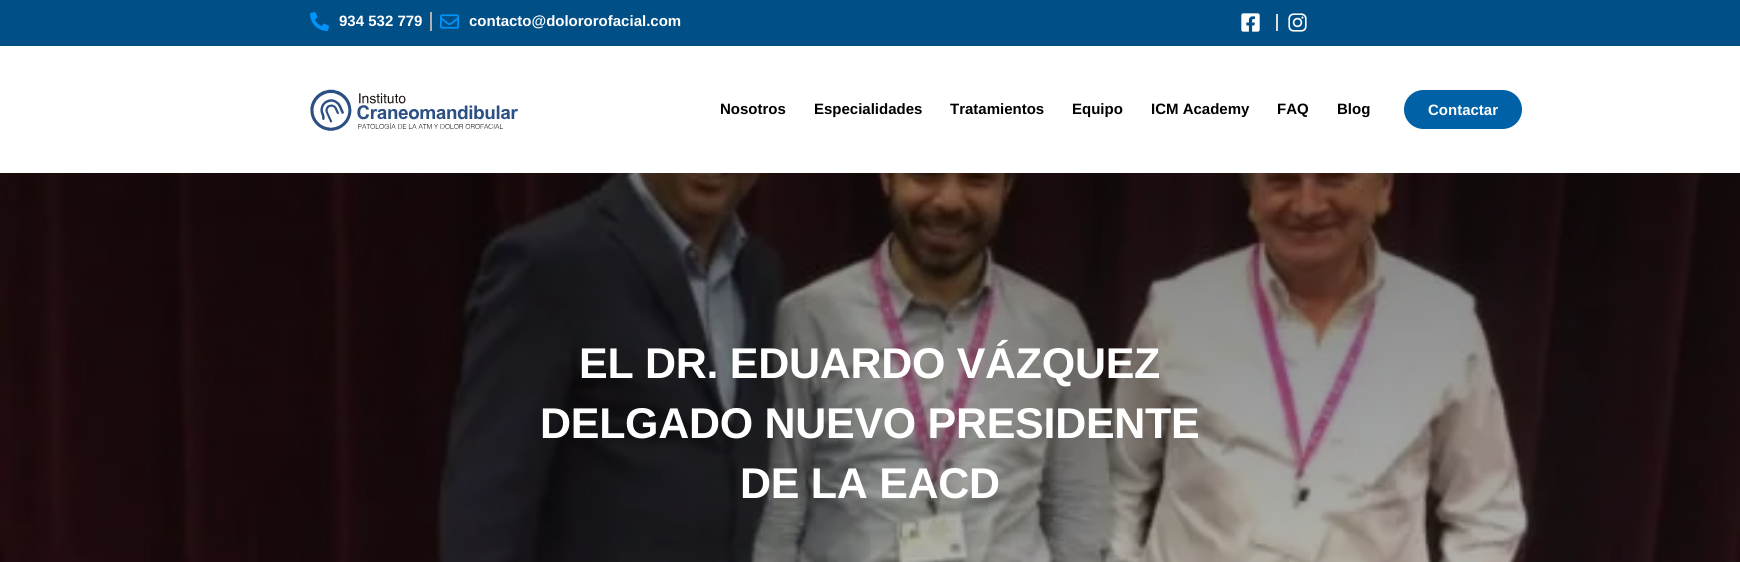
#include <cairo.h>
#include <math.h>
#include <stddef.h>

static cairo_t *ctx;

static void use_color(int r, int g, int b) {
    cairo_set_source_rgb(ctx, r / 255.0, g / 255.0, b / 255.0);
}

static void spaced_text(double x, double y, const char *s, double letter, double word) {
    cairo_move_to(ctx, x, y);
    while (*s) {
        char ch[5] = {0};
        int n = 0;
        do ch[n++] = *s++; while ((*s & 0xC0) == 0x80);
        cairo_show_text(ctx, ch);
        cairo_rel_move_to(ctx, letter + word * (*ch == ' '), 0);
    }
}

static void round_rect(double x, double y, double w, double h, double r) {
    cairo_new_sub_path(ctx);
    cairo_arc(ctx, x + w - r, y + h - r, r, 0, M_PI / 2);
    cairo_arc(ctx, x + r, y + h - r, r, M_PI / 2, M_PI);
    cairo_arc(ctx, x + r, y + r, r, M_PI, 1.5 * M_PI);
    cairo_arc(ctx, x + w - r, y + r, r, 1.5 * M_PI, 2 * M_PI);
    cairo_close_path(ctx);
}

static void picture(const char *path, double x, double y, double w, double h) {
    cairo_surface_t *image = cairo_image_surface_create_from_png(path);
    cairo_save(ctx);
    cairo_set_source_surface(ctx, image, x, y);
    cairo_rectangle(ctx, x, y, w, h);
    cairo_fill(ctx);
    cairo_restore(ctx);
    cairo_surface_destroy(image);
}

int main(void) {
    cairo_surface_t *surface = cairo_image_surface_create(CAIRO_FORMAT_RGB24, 1740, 562);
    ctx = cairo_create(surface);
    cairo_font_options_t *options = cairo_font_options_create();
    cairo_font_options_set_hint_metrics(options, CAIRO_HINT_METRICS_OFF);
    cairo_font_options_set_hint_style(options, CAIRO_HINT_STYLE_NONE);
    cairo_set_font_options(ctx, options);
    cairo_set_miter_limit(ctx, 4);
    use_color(255, 255, 255);
    cairo_paint(ctx);
    use_color(0, 79, 135);
    cairo_rectangle(ctx, 0, 0, 1740, 46);
    cairo_fill(ctx);
    picture("img1.png", 310, 12, 19, 19);
    cairo_select_font_face(ctx, "Liberation Sans", CAIRO_FONT_SLANT_NORMAL, CAIRO_FONT_WEIGHT_BOLD);
    cairo_set_font_size(ctx, 15);
    use_color(255, 255, 255);
    cairo_move_to(ctx, 339, 26);
    cairo_show_text(ctx, "934 532 779");
    use_color(179, 178, 178);
    cairo_rectangle(ctx, 430, 12, 2, 19);
    cairo_fill(ctx);
    picture("img2.png", 440, 14, 19, 15);
    use_color(255, 255, 255);
    cairo_move_to(ctx, 469, 26);
    cairo_show_text(ctx, "contacto@dolororofacial.com");
    picture("img3.png", 1241, 13, 19, 19);
    use_color(221, 221, 221);
    cairo_rectangle(ctx, 1276, 14, 2, 17);
    cairo_fill(ctx);
    picture("img4.png", 1288, 13, 19, 19);
    picture("img5.png", 310, 89, 208, 42);
    use_color(0, 0, 0);
    cairo_move_to(ctx, 720, 114);
    cairo_show_text(ctx, "Nosotros");
    cairo_move_to(ctx, 814, 114);
    cairo_show_text(ctx, "Especialidades");
    cairo_move_to(ctx, 950, 114);
    cairo_show_text(ctx, "Tratamientos");
    cairo_move_to(ctx, 1072, 114);
    cairo_show_text(ctx, "Equipo");
    cairo_move_to(ctx, 1151, 114);
    cairo_show_text(ctx, "ICM Academy");
    cairo_move_to(ctx, 1277, 114);
    cairo_show_text(ctx, "FAQ");
    cairo_move_to(ctx, 1337, 114);
    cairo_show_text(ctx, "Blog");
    use_color(0, 97, 166);
    round_rect(1404, 90, 118, 39, 19.5);
    cairo_fill(ctx);
    use_color(255, 255, 255);
    cairo_move_to(ctx, 1428, 115);
    cairo_show_text(ctx, "Contactar");
    picture("img6.png", 0, 173, 1740, 389);
    cairo_set_font_size(ctx, 43);
    spaced_text(579, 378, "EL DR. EDUARDO VÁZQUEZ", -0.3, 0);
    spaced_text(540, 438, "DELGADO NUEVO PRESIDENTE", -0.3, 0);
    spaced_text(740, 498, "DE LA EACD", -0.3, 0);
    cairo_surface_write_to_png(surface, "result.png");
    cairo_font_options_destroy(options);
    cairo_destroy(ctx);
    cairo_surface_destroy(surface);
    return 0;
}
